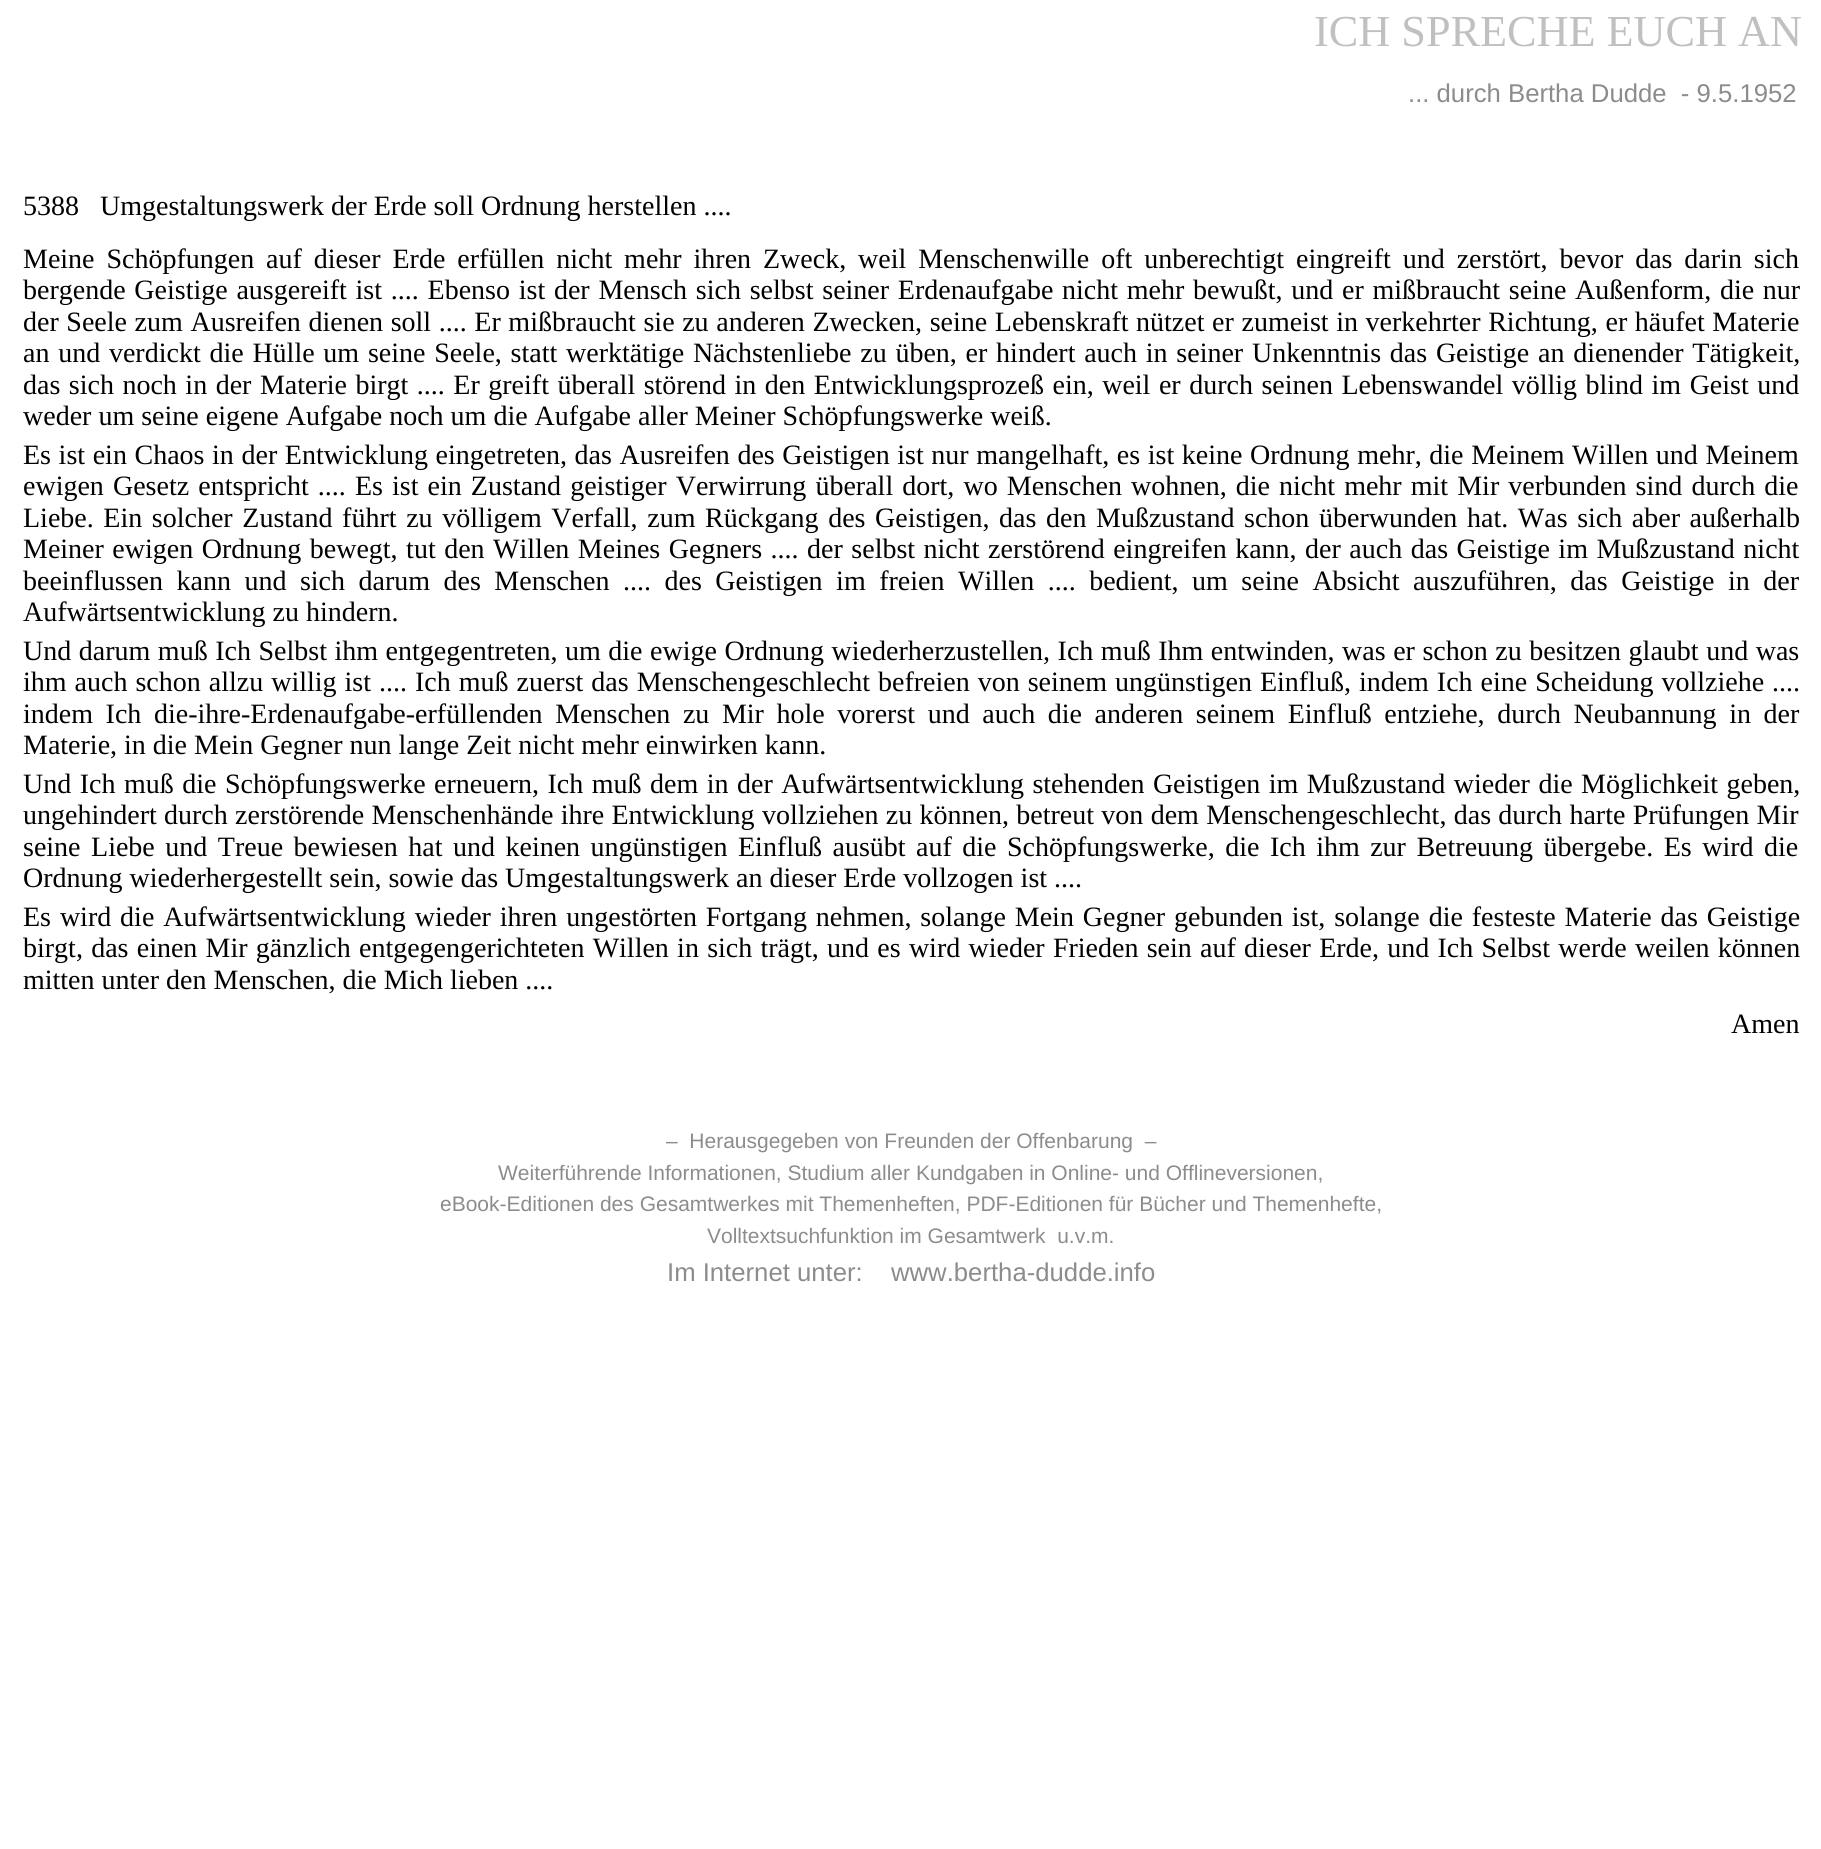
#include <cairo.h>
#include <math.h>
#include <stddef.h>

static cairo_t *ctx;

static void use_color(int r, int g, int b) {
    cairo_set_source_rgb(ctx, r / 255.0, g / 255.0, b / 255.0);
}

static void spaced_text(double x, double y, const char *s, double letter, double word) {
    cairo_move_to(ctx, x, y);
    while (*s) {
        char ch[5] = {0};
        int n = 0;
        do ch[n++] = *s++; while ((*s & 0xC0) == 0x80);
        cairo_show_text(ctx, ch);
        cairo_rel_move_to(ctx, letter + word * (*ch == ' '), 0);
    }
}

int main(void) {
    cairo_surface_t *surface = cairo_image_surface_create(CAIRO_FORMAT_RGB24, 1821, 1849);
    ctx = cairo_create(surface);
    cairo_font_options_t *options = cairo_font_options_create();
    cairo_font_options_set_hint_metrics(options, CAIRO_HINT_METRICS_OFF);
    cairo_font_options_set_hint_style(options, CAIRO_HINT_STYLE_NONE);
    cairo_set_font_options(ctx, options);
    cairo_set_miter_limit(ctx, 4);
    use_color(255, 255, 255);
    cairo_paint(ctx);
    cairo_select_font_face(ctx, "Liberation Serif", CAIRO_FONT_SLANT_NORMAL, CAIRO_FONT_WEIGHT_NORMAL);
    cairo_set_font_size(ctx, 44.25);
    use_color(192, 192, 192);
    cairo_move_to(ctx, 1314, 46);
    cairo_show_text(ctx, "ICH SPRECHE EUCH AN");
    cairo_select_font_face(ctx, "Liberation Sans", CAIRO_FONT_SLANT_NORMAL, CAIRO_FONT_WEIGHT_NORMAL);
    cairo_set_font_size(ctx, 25.7);
    use_color(140, 140, 140);
    cairo_move_to(ctx, 1408, 102);
    cairo_show_text(ctx, "... durch Bertha Dudde  - 9.5.1952");
    cairo_select_font_face(ctx, "Liberation Serif", CAIRO_FONT_SLANT_NORMAL, CAIRO_FONT_WEIGHT_NORMAL);
    cairo_set_font_size(ctx, 28);
    use_color(0, 0, 0);
    cairo_move_to(ctx, 23, 215);
    cairo_show_text(ctx, "5388   Umgestaltungswerk der Erde soll Ordnung herstellen ....");
    spaced_text(23, 268, "Meine Schöpfungen auf dieser Erde erfüllen nicht mehr ihren Zweck, weil Menschenwille oft unberechtigt eingreift und zerstört, bevor das darin sich", 0, 4.9);
    spaced_text(23, 299, "bergende Geistige ausgereift ist .... Ebenso ist der Mensch sich selbst seiner Erdenaufgabe nicht mehr bewußt, und er mißbraucht seine Außenform, die nur", 0, 1.75);
    spaced_text(23, 331, "der Seele zum Ausreifen dienen soll .... Er mißbraucht sie zu anderen Zwecken, seine Lebenskraft nützet er zumeist in verkehrter Richtung, er häufet Materie", 0, 0.6);
    spaced_text(23, 362, "an und verdickt die Hülle um seine Seele, statt werktätige Nächstenliebe zu üben, er hindert auch in seiner Unkenntnis das Geistige an dienender Tätigkeit,", 0, 1.75);
    spaced_text(23, 394, "das sich noch in der Materie birgt .... Er greift überall störend in den Entwicklungsprozeß ein, weil er durch seinen Lebenswandel völlig blind im Geist und", 0, 1.5);
    cairo_move_to(ctx, 23, 425);
    cairo_show_text(ctx, "weder um seine eigene Aufgabe noch um die Aufgabe aller Meiner Schöpfungswerke weiß.");
    spaced_text(23, 464, "Es ist ein Chaos in der Entwicklung eingetreten, das Ausreifen des Geistigen ist nur mangelhaft, es ist keine Ordnung mehr, die Meinem Willen und Meinem", 0, 0.6);
    spaced_text(23, 495, "ewigen Gesetz entspricht .... Es ist ein Zustand geistiger Verwirrung überall dort, wo Menschen wohnen, die nicht mehr mit Mir verbunden sind durch die", 0, 2.1);
    spaced_text(23, 527, "Liebe. Ein solcher Zustand führt zu völligem Verfall, zum Rückgang des Geistigen, das den Mußzustand schon überwunden hat. Was sich aber außerhalb", 0, 2.6);
    spaced_text(23, 558, "Meiner ewigen Ordnung bewegt, tut den Willen Meines Gegners .... der selbst nicht zerstörend eingreifen kann, der auch das Geistige im Mußzustand nicht", 0, 1.5);
    spaced_text(23, 590, "beeinflussen kann und sich darum des Menschen .... des Geistigen im freien Willen .... bedient, um seine Absicht auszuführen, das Geistige in der", 0, 6.5);
    cairo_move_to(ctx, 23, 621);
    cairo_show_text(ctx, "Aufwärtsentwicklung zu hindern.");
    spaced_text(23, 660, "Und darum muß Ich Selbst ihm entgegentreten, um die ewige Ordnung wiederherzustellen, Ich muß Ihm entwinden, was er schon zu besitzen glaubt und was", 0, 0.55);
    spaced_text(23, 691, "ihm auch schon allzu willig ist .... Ich muß zuerst das Menschengeschlecht befreien von seinem ungünstigen Einfluß, indem Ich eine Scheidung vollziehe ....", 0, 1);
    spaced_text(23, 723, "indem Ich die-ihre-Erdenaufgabe-erfüllenden Menschen zu Mir hole vorerst und auch die anderen seinem Einfluß entziehe, durch Neubannung in der", 0, 5.6);
    cairo_move_to(ctx, 23, 754);
    cairo_show_text(ctx, "Materie, in die Mein Gegner nun lange Zeit nicht mehr einwirken kann.");
    spaced_text(23, 793, "Und Ich muß die Schöpfungswerke erneuern, Ich muß dem in der Aufwärtsentwicklung stehenden Geistigen im Mußzustand wieder die Möglichkeit geben,", 0, 1.5);
    spaced_text(23, 824, "ungehindert durch zerstörende Menschenhände ihre Entwicklung vollziehen zu können, betreut von dem Menschengeschlecht, das durch harte Prüfungen Mir", 0, 0.3);
    spaced_text(23, 856, "seine Liebe und Treue bewiesen hat und keinen ungünstigen Einfluß ausübt auf die Schöpfungswerke, die Ich ihm zur Betreuung übergebe. Es wird die", 0, 3.5);
    cairo_move_to(ctx, 23, 887);
    cairo_show_text(ctx, "Ordnung wiederhergestellt sein, sowie das Umgestaltungswerk an dieser Erde vollzogen ist ....");
    spaced_text(23, 926, "Es wird die Aufwärtsentwicklung wieder ihren ungestörten Fortgang nehmen, solange Mein Gegner gebunden ist, solange die festeste Materie das Geistige", 0, 1.9);
    spaced_text(23, 957, "birgt, das einen Mir gänzlich entgegengerichteten Willen in sich trägt, und es wird wieder Frieden sein auf dieser Erde, und Ich Selbst werde weilen können", 0, 1.25);
    cairo_move_to(ctx, 23, 989);
    cairo_show_text(ctx, "mitten unter den Menschen, die Mich lieben ....");
    cairo_move_to(ctx, 1731, 1033);
    cairo_show_text(ctx, "Amen");
    cairo_select_font_face(ctx, "Liberation Sans", CAIRO_FONT_SLANT_NORMAL, CAIRO_FONT_WEIGHT_NORMAL);
    cairo_set_font_size(ctx, 21);
    use_color(140, 140, 140);
    cairo_move_to(ctx, 666, 1148);
    cairo_show_text(ctx, "–  Herausgegeben von Freunden der Offenbarung  –");
    cairo_move_to(ctx, 498, 1180);
    cairo_show_text(ctx, "Weiterführende Informationen, Studium aller Kundgaben in Online- und Offlineversionen,");
    cairo_move_to(ctx, 440, 1211);
    cairo_show_text(ctx, "eBook-Editionen des Gesamtwerkes mit Themenheften, PDF-Editionen für Bücher und Themenhefte,");
    cairo_move_to(ctx, 707, 1243);
    cairo_show_text(ctx, "Volltextsuchfunktion im Gesamtwerk  u.v.m.");
    cairo_set_font_size(ctx, 25.7);
    cairo_move_to(ctx, 667, 1281);
    cairo_show_text(ctx, "Im Internet unter:");
    cairo_move_to(ctx, 891, 1281);
    cairo_show_text(ctx, "www.bertha-dudde.info");
    cairo_surface_write_to_png(surface, "result.png");
    cairo_font_options_destroy(options);
    cairo_destroy(ctx);
    cairo_surface_destroy(surface);
    return 0;
}
